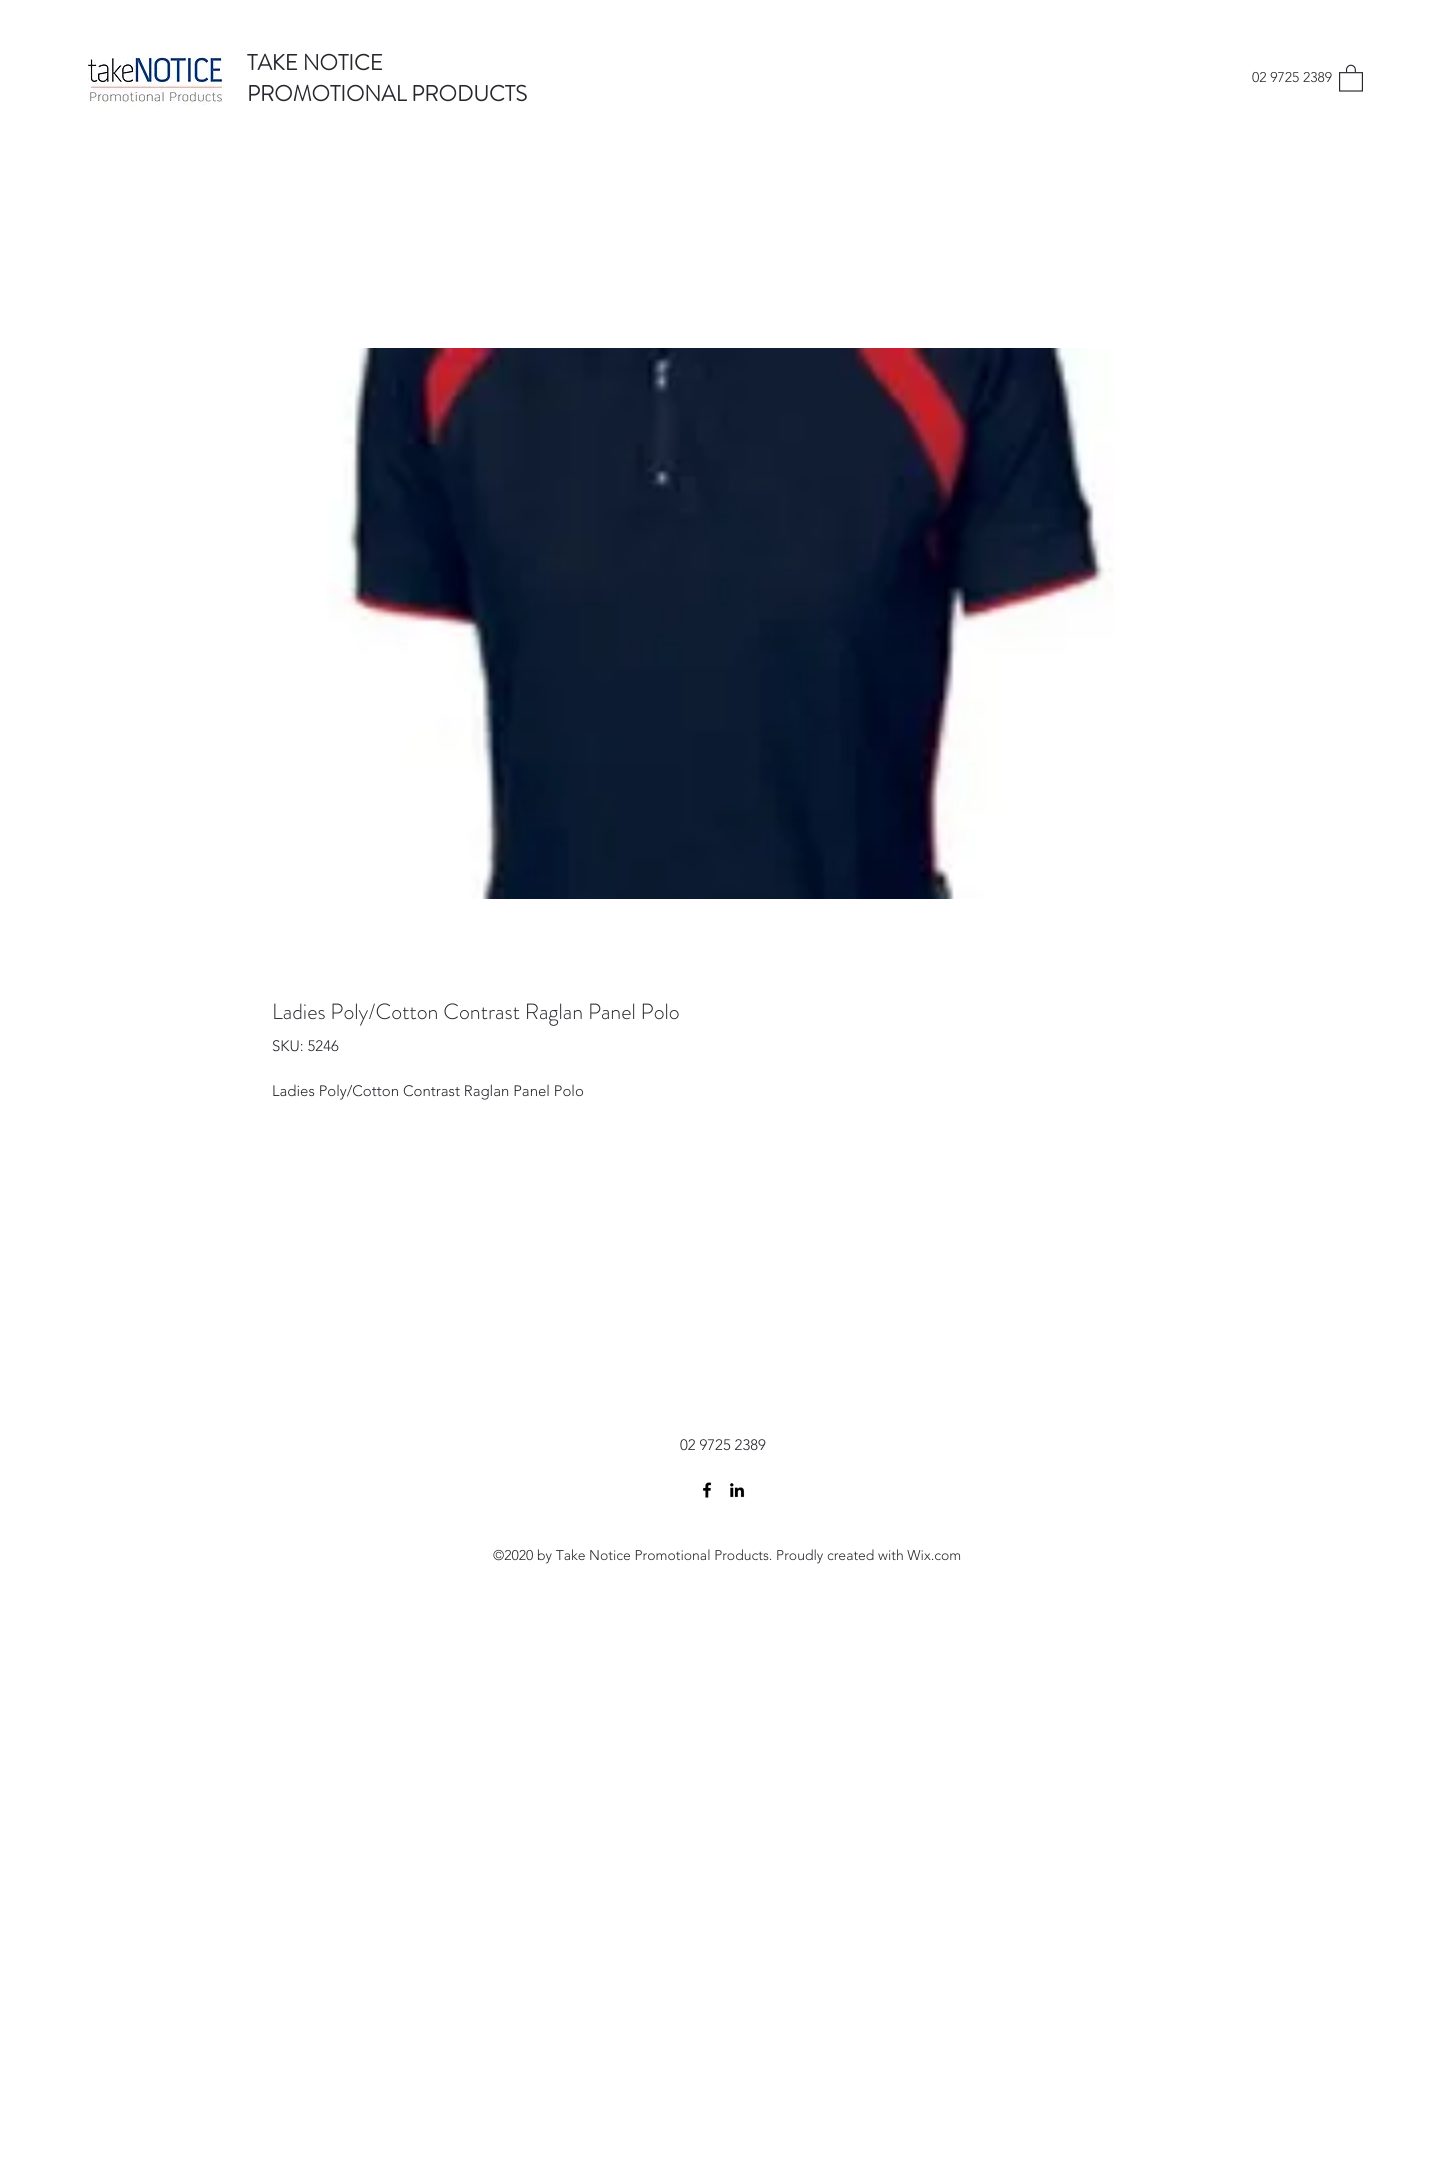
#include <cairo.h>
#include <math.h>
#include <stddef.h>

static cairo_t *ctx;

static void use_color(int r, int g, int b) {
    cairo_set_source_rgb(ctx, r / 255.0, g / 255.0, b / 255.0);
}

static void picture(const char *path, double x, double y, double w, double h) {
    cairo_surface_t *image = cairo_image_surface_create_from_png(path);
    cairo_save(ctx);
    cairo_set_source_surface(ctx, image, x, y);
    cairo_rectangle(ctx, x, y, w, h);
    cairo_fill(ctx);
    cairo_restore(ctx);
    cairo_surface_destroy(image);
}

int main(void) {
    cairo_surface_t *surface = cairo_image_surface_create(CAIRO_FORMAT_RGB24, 1444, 2178);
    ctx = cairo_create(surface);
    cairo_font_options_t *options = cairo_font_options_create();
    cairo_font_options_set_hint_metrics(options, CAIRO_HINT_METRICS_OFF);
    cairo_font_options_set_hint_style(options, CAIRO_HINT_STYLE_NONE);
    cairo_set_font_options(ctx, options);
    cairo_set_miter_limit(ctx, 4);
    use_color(255, 255, 255);
    cairo_paint(ctx);
    picture("img1.png", 88, 53, 136, 53);
    cairo_select_font_face(ctx, "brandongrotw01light", CAIRO_FONT_SLANT_NORMAL, CAIRO_FONT_WEIGHT_BOLD);
    cairo_set_font_size(ctx, 22);
    use_color(41, 39, 45);
    cairo_move_to(ctx, 247, 70);
    cairo_show_text(ctx, "TAKE NOTICE");
    cairo_move_to(ctx, 247, 101);
    cairo_show_text(ctx, "PROMOTIONAL PRODUCTS");
    cairo_select_font_face(ctx, "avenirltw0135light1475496 Light", CAIRO_FONT_SLANT_NORMAL, CAIRO_FONT_WEIGHT_NORMAL);
    cairo_set_font_size(ctx, 14);
    cairo_move_to(ctx, 1252, 82);
    cairo_show_text(ctx, "02 9725 2389");
    picture("img2.png", 1339, 64, 24, 28);
    picture("img3.png", 327, 348, 787, 551);
    cairo_select_font_face(ctx, "brandongrotw01light Light", CAIRO_FONT_SLANT_NORMAL, CAIRO_FONT_WEIGHT_NORMAL);
    cairo_set_font_size(ctx, 22);
    cairo_move_to(ctx, 272, 1019);
    cairo_show_text(ctx, "Ladies Poly/Cotton Contrast Raglan Panel Polo");
    cairo_select_font_face(ctx, "avenirltw0135light1475496 Light", CAIRO_FONT_SLANT_NORMAL, CAIRO_FONT_WEIGHT_NORMAL);
    cairo_set_font_size(ctx, 15);
    cairo_move_to(ctx, 272, 1051);
    cairo_show_text(ctx, "SKU: 5246");
    cairo_move_to(ctx, 272, 1096);
    cairo_show_text(ctx, "Ladies Poly/Cotton Contrast Raglan Panel Polo");
    cairo_move_to(ctx, 680, 1450);
    cairo_show_text(ctx, "02 9725 2389");
    picture("img4.png", 703, 1482, 9, 16);
    picture("img5.png", 730, 1483, 15, 15);
    cairo_set_font_size(ctx, 14);
    cairo_move_to(ctx, 493, 1560);
    cairo_show_text(ctx, "©2020 by Take Notice Promotional Products. Proudly created with Wix.com");
    cairo_surface_write_to_png(surface, "result.png");
    cairo_font_options_destroy(options);
    cairo_destroy(ctx);
    cairo_surface_destroy(surface);
    return 0;
}
